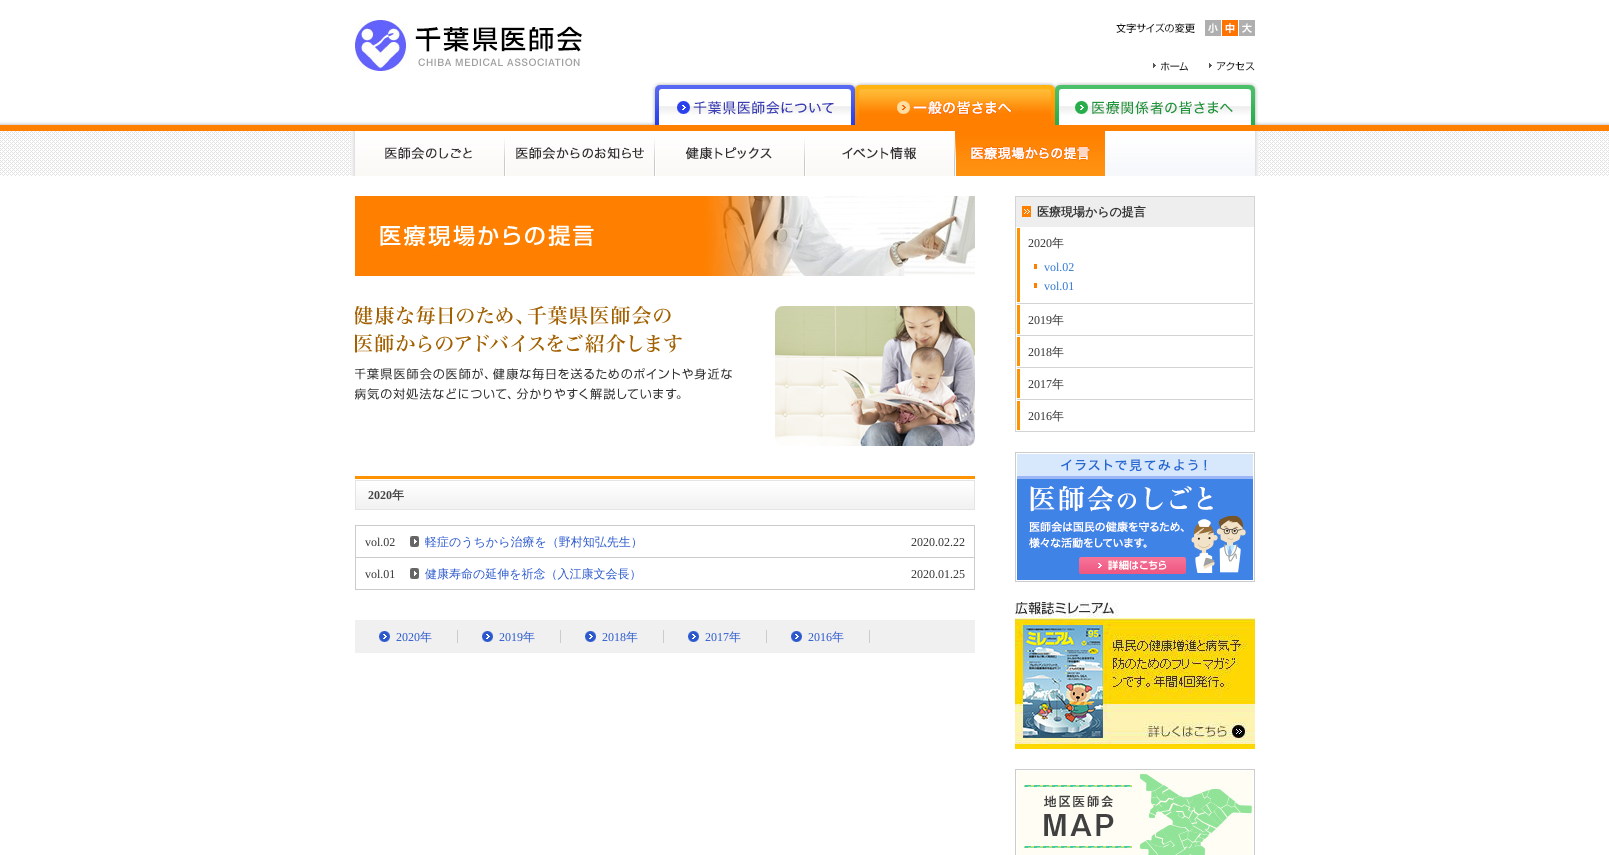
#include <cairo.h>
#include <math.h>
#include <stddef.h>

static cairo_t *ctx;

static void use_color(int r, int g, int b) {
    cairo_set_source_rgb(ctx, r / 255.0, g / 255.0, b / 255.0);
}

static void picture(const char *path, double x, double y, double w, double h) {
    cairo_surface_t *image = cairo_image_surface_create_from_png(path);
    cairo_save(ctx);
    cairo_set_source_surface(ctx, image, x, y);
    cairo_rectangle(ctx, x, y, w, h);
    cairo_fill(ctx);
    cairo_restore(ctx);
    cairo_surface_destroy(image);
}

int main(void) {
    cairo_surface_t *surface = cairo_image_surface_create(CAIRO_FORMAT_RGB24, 1609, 855);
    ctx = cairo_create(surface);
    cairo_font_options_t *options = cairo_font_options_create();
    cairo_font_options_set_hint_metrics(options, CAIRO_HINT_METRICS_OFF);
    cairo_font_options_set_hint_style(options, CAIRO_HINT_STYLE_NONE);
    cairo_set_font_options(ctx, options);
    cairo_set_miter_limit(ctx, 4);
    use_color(255, 255, 255);
    cairo_paint(ctx);
    picture("img1.png", 0, 0, 1609, 176);
    picture("img2.png", 351, 82, 908, 94);
    picture("img3.png", 355, 20, 228, 51);
    picture("img4.png", 1116, 23, 79, 10);
    picture("img5.png", 1205, 20, 16, 16);
    picture("img6.png", 1222, 20, 16, 16);
    picture("img7.png", 1239, 20, 16, 16);
    picture("img8.png", 1153, 62, 36, 9);
    picture("img9.png", 1209, 61, 46, 10);
    picture("img10.png", 655, 85, 200, 40);
    picture("img11.png", 855, 85, 200, 40);
    picture("img12.png", 1055, 85, 200, 40);
    picture("img13.png", 355, 138, 150, 38);
    picture("img14.png", 505, 138, 150, 38);
    picture("img15.png", 655, 138, 150, 38);
    picture("img16.png", 805, 138, 150, 38);
    picture("img17.png", 955, 131, 150, 45);
    use_color(212, 212, 212);
    cairo_rectangle(ctx, 1015, 196, 240, 236);
    cairo_fill(ctx);
    use_color(238, 238, 238);
    cairo_rectangle(ctx, 1016, 197, 238, 30);
    cairo_fill(ctx);
    picture("img18.png", 1022, 206, 9, 11);
    cairo_select_font_face(ctx, "WenQuanYi Zen Hei", CAIRO_FONT_SLANT_NORMAL, CAIRO_FONT_WEIGHT_BOLD);
    cairo_set_font_size(ctx, 12);
    use_color(51, 51, 51);
    cairo_move_to(ctx, 1037, 216);
    cairo_show_text(ctx, "医療現場からの提言");
    use_color(255, 255, 255);
    cairo_rectangle(ctx, 1016, 227, 238, 1);
    cairo_fill(ctx);
    cairo_rectangle(ctx, 1253, 227, 1, 204);
    cairo_fill(ctx);
    cairo_rectangle(ctx, 1016, 227, 1, 204);
    cairo_fill(ctx);
    cairo_rectangle(ctx, 1017, 228, 236, 75);
    cairo_fill(ctx);
    cairo_select_font_face(ctx, "Liberation Serif", CAIRO_FONT_SLANT_NORMAL, CAIRO_FONT_WEIGHT_NORMAL);
    use_color(51, 51, 51);
    cairo_move_to(ctx, 1028, 247);
    cairo_show_text(ctx, "2020");
    cairo_select_font_face(ctx, "WenQuanYi Zen Hei Medium", CAIRO_FONT_SLANT_NORMAL, CAIRO_FONT_WEIGHT_NORMAL);
    cairo_move_to(ctx, 1052, 247);
    cairo_show_text(ctx, "年");
    use_color(255, 146, 0);
    cairo_rectangle(ctx, 1017, 228, 3, 74);
    cairo_fill(ctx);
    use_color(255, 128, 1);
    cairo_rectangle(ctx, 1034, 264, 3, 5);
    cairo_fill(ctx);
    cairo_select_font_face(ctx, "Liberation Serif", CAIRO_FONT_SLANT_NORMAL, CAIRO_FONT_WEIGHT_NORMAL);
    use_color(48, 119, 212);
    cairo_move_to(ctx, 1044, 271);
    cairo_show_text(ctx, "vol.02");
    use_color(255, 128, 1);
    cairo_rectangle(ctx, 1034, 283, 3, 5);
    cairo_fill(ctx);
    use_color(48, 119, 212);
    cairo_move_to(ctx, 1044, 290);
    cairo_show_text(ctx, "vol.01");
    use_color(255, 255, 255);
    cairo_rectangle(ctx, 1017, 304, 236, 31);
    cairo_fill(ctx);
    use_color(255, 146, 0);
    cairo_rectangle(ctx, 1017, 305, 3, 29);
    cairo_fill(ctx);
    use_color(51, 51, 51);
    cairo_move_to(ctx, 1028, 324);
    cairo_show_text(ctx, "2019");
    cairo_select_font_face(ctx, "WenQuanYi Zen Hei Medium", CAIRO_FONT_SLANT_NORMAL, CAIRO_FONT_WEIGHT_NORMAL);
    cairo_move_to(ctx, 1052, 324);
    cairo_show_text(ctx, "年");
    use_color(255, 255, 255);
    cairo_rectangle(ctx, 1017, 336, 236, 31);
    cairo_fill(ctx);
    use_color(255, 146, 0);
    cairo_rectangle(ctx, 1017, 337, 3, 29);
    cairo_fill(ctx);
    cairo_select_font_face(ctx, "Liberation Serif", CAIRO_FONT_SLANT_NORMAL, CAIRO_FONT_WEIGHT_NORMAL);
    use_color(51, 51, 51);
    cairo_move_to(ctx, 1028, 356);
    cairo_show_text(ctx, "2018");
    cairo_select_font_face(ctx, "WenQuanYi Zen Hei Medium", CAIRO_FONT_SLANT_NORMAL, CAIRO_FONT_WEIGHT_NORMAL);
    cairo_move_to(ctx, 1052, 356);
    cairo_show_text(ctx, "年");
    use_color(255, 255, 255);
    cairo_rectangle(ctx, 1017, 368, 236, 31);
    cairo_fill(ctx);
    use_color(255, 146, 0);
    cairo_rectangle(ctx, 1017, 369, 3, 29);
    cairo_fill(ctx);
    cairo_select_font_face(ctx, "Liberation Serif", CAIRO_FONT_SLANT_NORMAL, CAIRO_FONT_WEIGHT_NORMAL);
    use_color(51, 51, 51);
    cairo_move_to(ctx, 1028, 388);
    cairo_show_text(ctx, "2017");
    cairo_select_font_face(ctx, "WenQuanYi Zen Hei Medium", CAIRO_FONT_SLANT_NORMAL, CAIRO_FONT_WEIGHT_NORMAL);
    cairo_move_to(ctx, 1052, 388);
    cairo_show_text(ctx, "年");
    use_color(255, 255, 255);
    cairo_rectangle(ctx, 1017, 400, 236, 31);
    cairo_fill(ctx);
    use_color(255, 146, 0);
    cairo_rectangle(ctx, 1017, 401, 3, 29);
    cairo_fill(ctx);
    cairo_select_font_face(ctx, "Liberation Serif", CAIRO_FONT_SLANT_NORMAL, CAIRO_FONT_WEIGHT_NORMAL);
    use_color(51, 51, 51);
    cairo_move_to(ctx, 1028, 420);
    cairo_show_text(ctx, "2016");
    cairo_select_font_face(ctx, "WenQuanYi Zen Hei Medium", CAIRO_FONT_SLANT_NORMAL, CAIRO_FONT_WEIGHT_NORMAL);
    cairo_move_to(ctx, 1052, 420);
    cairo_show_text(ctx, "年");
    picture("img19.png", 1015, 452, 240, 130);
    picture("img20.png", 1015, 602, 240, 147);
    picture("img21.png", 1015, 769, 240, 86);
    picture("img22.png", 355, 196, 620, 80);
    picture("img23.png", 355, 306, 327, 47);
    picture("img24.png", 355, 368, 377, 32);
    picture("img25.png", 775, 306, 200, 140);
    picture("img26.png", 355, 476, 620, 34);
    cairo_select_font_face(ctx, "Liberation Serif", CAIRO_FONT_SLANT_NORMAL, CAIRO_FONT_WEIGHT_BOLD);
    use_color(68, 68, 68);
    cairo_move_to(ctx, 368, 499);
    cairo_show_text(ctx, "2020");
    cairo_select_font_face(ctx, "WenQuanYi Zen Hei", CAIRO_FONT_SLANT_NORMAL, CAIRO_FONT_WEIGHT_BOLD);
    cairo_move_to(ctx, 392, 499);
    cairo_show_text(ctx, "年");
    cairo_rectangle(ctx, 355.5, 525.5, 619, 64);
    use_color(204, 204, 204);
    cairo_set_line_width(ctx, 1);
    cairo_stroke(ctx);
    cairo_select_font_face(ctx, "Liberation Serif", CAIRO_FONT_SLANT_NORMAL, CAIRO_FONT_WEIGHT_NORMAL);
    use_color(51, 51, 51);
    cairo_move_to(ctx, 365, 546);
    cairo_show_text(ctx, "vol.02");
    picture("img27.png", 410, 536, 9, 11);
    cairo_select_font_face(ctx, "WenQuanYi Zen Hei Medium", CAIRO_FONT_SLANT_NORMAL, CAIRO_FONT_WEIGHT_NORMAL);
    use_color(43, 89, 205);
    cairo_move_to(ctx, 425, 546);
    cairo_show_text(ctx, "軽症のうちから治療を（野村知弘先生）");
    cairo_select_font_face(ctx, "Liberation Serif", CAIRO_FONT_SLANT_NORMAL, CAIRO_FONT_WEIGHT_NORMAL);
    use_color(51, 51, 51);
    cairo_move_to(ctx, 911, 546);
    cairo_show_text(ctx, "2020.02.22");
    use_color(204, 204, 204);
    cairo_rectangle(ctx, 356, 557, 618, 1);
    cairo_fill(ctx);
    use_color(51, 51, 51);
    cairo_move_to(ctx, 365, 578);
    cairo_show_text(ctx, "vol.01");
    picture("img27.png", 410, 568, 9, 11);
    cairo_select_font_face(ctx, "WenQuanYi Zen Hei Medium", CAIRO_FONT_SLANT_NORMAL, CAIRO_FONT_WEIGHT_NORMAL);
    use_color(43, 89, 205);
    cairo_move_to(ctx, 425, 578);
    cairo_show_text(ctx, "健康寿命の延伸を祈念（入江康文会長）");
    cairo_select_font_face(ctx, "Liberation Serif", CAIRO_FONT_SLANT_NORMAL, CAIRO_FONT_WEIGHT_NORMAL);
    use_color(51, 51, 51);
    cairo_move_to(ctx, 911, 578);
    cairo_show_text(ctx, "2020.01.25");
    use_color(240, 240, 240);
    cairo_rectangle(ctx, 355, 620, 620, 33);
    cairo_fill(ctx);
    picture("img28.png", 379, 630, 79, 13);
    use_color(43, 89, 205);
    cairo_move_to(ctx, 396, 641);
    cairo_show_text(ctx, "2020");
    cairo_select_font_face(ctx, "WenQuanYi Zen Hei Medium", CAIRO_FONT_SLANT_NORMAL, CAIRO_FONT_WEIGHT_NORMAL);
    cairo_move_to(ctx, 420, 641);
    cairo_show_text(ctx, "年");
    picture("img28.png", 482, 630, 79, 13);
    cairo_select_font_face(ctx, "Liberation Serif", CAIRO_FONT_SLANT_NORMAL, CAIRO_FONT_WEIGHT_NORMAL);
    cairo_move_to(ctx, 499, 641);
    cairo_show_text(ctx, "2019");
    cairo_select_font_face(ctx, "WenQuanYi Zen Hei Medium", CAIRO_FONT_SLANT_NORMAL, CAIRO_FONT_WEIGHT_NORMAL);
    cairo_move_to(ctx, 523, 641);
    cairo_show_text(ctx, "年");
    picture("img28.png", 585, 630, 79, 13);
    cairo_select_font_face(ctx, "Liberation Serif", CAIRO_FONT_SLANT_NORMAL, CAIRO_FONT_WEIGHT_NORMAL);
    cairo_move_to(ctx, 602, 641);
    cairo_show_text(ctx, "2018");
    cairo_select_font_face(ctx, "WenQuanYi Zen Hei Medium", CAIRO_FONT_SLANT_NORMAL, CAIRO_FONT_WEIGHT_NORMAL);
    cairo_move_to(ctx, 626, 641);
    cairo_show_text(ctx, "年");
    picture("img28.png", 688, 630, 79, 13);
    cairo_select_font_face(ctx, "Liberation Serif", CAIRO_FONT_SLANT_NORMAL, CAIRO_FONT_WEIGHT_NORMAL);
    cairo_move_to(ctx, 705, 641);
    cairo_show_text(ctx, "2017");
    cairo_select_font_face(ctx, "WenQuanYi Zen Hei Medium", CAIRO_FONT_SLANT_NORMAL, CAIRO_FONT_WEIGHT_NORMAL);
    cairo_move_to(ctx, 729, 641);
    cairo_show_text(ctx, "年");
    picture("img28.png", 791, 630, 79, 13);
    cairo_select_font_face(ctx, "Liberation Serif", CAIRO_FONT_SLANT_NORMAL, CAIRO_FONT_WEIGHT_NORMAL);
    cairo_move_to(ctx, 808, 641);
    cairo_show_text(ctx, "2016");
    cairo_select_font_face(ctx, "WenQuanYi Zen Hei Medium", CAIRO_FONT_SLANT_NORMAL, CAIRO_FONT_WEIGHT_NORMAL);
    cairo_move_to(ctx, 832, 641);
    cairo_show_text(ctx, "年");
    cairo_surface_write_to_png(surface, "result.png");
    cairo_font_options_destroy(options);
    cairo_destroy(ctx);
    cairo_surface_destroy(surface);
    return 0;
}
